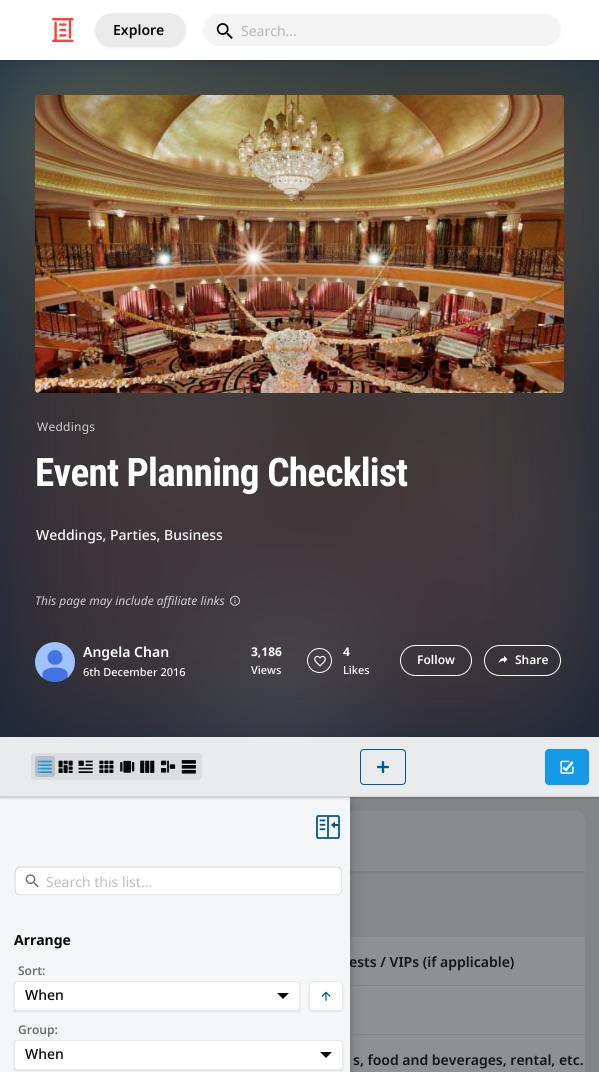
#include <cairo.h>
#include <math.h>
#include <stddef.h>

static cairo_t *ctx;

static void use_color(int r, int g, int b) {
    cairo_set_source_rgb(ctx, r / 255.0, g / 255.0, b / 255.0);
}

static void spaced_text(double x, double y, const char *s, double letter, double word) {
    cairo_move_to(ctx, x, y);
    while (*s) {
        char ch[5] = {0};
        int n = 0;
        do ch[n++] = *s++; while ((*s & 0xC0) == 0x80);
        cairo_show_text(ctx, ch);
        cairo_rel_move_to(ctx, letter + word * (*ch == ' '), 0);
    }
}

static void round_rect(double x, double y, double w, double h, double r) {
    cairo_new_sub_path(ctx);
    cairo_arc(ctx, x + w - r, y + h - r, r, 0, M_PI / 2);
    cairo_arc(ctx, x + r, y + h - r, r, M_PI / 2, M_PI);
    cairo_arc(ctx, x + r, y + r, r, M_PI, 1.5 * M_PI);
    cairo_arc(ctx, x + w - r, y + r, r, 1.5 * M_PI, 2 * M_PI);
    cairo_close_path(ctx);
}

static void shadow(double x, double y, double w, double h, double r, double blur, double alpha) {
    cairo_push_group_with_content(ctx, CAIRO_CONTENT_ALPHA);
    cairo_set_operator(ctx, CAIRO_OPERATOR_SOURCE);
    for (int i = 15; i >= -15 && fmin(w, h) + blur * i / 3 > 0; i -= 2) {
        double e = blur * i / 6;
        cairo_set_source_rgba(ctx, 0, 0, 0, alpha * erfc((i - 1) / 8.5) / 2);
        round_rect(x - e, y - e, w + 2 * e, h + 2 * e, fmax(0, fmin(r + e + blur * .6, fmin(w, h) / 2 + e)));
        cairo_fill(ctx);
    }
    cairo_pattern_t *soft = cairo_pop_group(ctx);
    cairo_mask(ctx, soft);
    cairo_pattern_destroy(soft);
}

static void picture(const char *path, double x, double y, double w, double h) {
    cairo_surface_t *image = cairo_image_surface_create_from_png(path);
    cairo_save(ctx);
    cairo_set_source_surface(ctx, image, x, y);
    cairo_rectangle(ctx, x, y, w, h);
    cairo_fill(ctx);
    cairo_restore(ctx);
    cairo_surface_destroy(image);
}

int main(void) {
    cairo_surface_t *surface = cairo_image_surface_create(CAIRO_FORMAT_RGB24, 599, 1072);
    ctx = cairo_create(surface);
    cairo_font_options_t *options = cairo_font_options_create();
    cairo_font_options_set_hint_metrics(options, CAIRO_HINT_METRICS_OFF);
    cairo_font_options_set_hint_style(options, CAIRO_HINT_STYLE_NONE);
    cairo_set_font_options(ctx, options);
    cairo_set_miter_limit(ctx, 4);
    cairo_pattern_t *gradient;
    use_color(255, 255, 255);
    cairo_paint(ctx);
    gradient = cairo_pattern_create_linear(300, 737, 300, 60);
    cairo_pattern_add_color_stop_rgba(gradient, 0, 0.031, 0.129, 0.239, 1);
    cairo_pattern_add_color_stop_rgba(gradient, 1, 0.031, 0.161, 0.286, 1);
    cairo_set_source(ctx, gradient);
    cairo_pattern_destroy(gradient);
    cairo_rectangle(ctx, 0, 60, 599, 677);
    cairo_fill(ctx);
    picture("img3.png", 0, 60, 599, 677);
    use_color(0, 0, 0);
    shadow(1, 2, 597, 58, 0, 1, 0.15);
    shadow(0, 1, 599, 60, 0, 1.5, 0.15);
    use_color(255, 255, 255);
    cairo_rectangle(ctx, 0, 0, 599, 60);
    cairo_fill(ctx);
    picture("img1.png", 52, 18, 22, 24);
    cairo_save(ctx);
    cairo_set_fill_rule(ctx, CAIRO_FILL_RULE_EVEN_ODD);
    cairo_new_path(ctx);
    cairo_move_to(ctx, 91, 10);
    cairo_line_to(ctx, 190, 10);
    cairo_line_to(ctx, 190, 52);
    cairo_line_to(ctx, 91, 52);
    cairo_close_path(ctx);
    cairo_move_to(ctx, 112, 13);
    cairo_line_to(ctx, 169, 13);
    cairo_curve_to(ctx, 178.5, 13, 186, 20.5, 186, 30);
    cairo_curve_to(ctx, 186, 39.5, 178.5, 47, 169, 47);
    cairo_line_to(ctx, 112, 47);
    cairo_curve_to(ctx, 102.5, 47, 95, 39.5, 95, 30);
    cairo_curve_to(ctx, 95, 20.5, 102.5, 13, 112, 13);
    cairo_close_path(ctx);
    cairo_clip(ctx);
    use_color(0, 0, 0);
    shadow(95, 14, 91, 34, 17, 1, 0.08);
    cairo_restore(ctx);
    cairo_set_source_rgba(ctx, 0.443, 0.443, 0.482, 0.15);
    round_rect(95, 13, 91, 34, 17);
    cairo_fill(ctx);
    cairo_select_font_face(ctx, "Noto Sans SemiBold", CAIRO_FONT_SLANT_NORMAL, CAIRO_FONT_WEIGHT_NORMAL);
    cairo_set_font_size(ctx, 14);
    use_color(8, 8, 8);
    cairo_move_to(ctx, 113, 35);
    cairo_show_text(ctx, "Explore");
    use_color(244, 244, 245);
    round_rect(202.5, 13.5, 359, 33, 16.5);
    cairo_fill_preserve(ctx);
    use_color(255, 255, 255);
    cairo_set_line_width(ctx, 1);
    cairo_stroke(ctx);
    picture("img2.png", 216, 23, 17, 16);
    cairo_select_font_face(ctx, "Noto Sans", CAIRO_FONT_SLANT_NORMAL, CAIRO_FONT_WEIGHT_NORMAL);
    use_color(183, 183, 184);
    cairo_move_to(ctx, 241, 36);
    cairo_show_text(ctx, "Search...");
    picture("img4.png", 35, 95, 529, 298);
    cairo_set_font_size(ctx, 12);
    use_color(206, 204, 205);
    spaced_text(37, 431, "Weddings", 0.25, 0);
    cairo_select_font_face(ctx, "Roboto Condensed", CAIRO_FONT_SLANT_NORMAL, CAIRO_FONT_WEIGHT_BOLD);
    cairo_set_font_size(ctx, 39.25);
    use_color(255, 255, 255);
    spaced_text(35, 486, "Event Planning Checklist", -0.75, 0);
    cairo_select_font_face(ctx, "Noto Sans Medium", CAIRO_FONT_SLANT_NORMAL, CAIRO_FONT_WEIGHT_NORMAL);
    cairo_set_font_size(ctx, 14);
    cairo_move_to(ctx, 36, 540);
    cairo_show_text(ctx, "Weddings, Parties, Business");
    cairo_select_font_face(ctx, "Noto Sans", CAIRO_FONT_SLANT_ITALIC, CAIRO_FONT_WEIGHT_NORMAL);
    cairo_set_font_size(ctx, 12);
    use_color(206, 204, 205);
    cairo_move_to(ctx, 35, 605);
    cairo_show_text(ctx, "This page may include affiliate links");
    picture("img5.png", 230, 595, 10, 11);
    picture("img6.png", 35, 642, 40, 40);
    cairo_select_font_face(ctx, "Noto Sans SemiBold", CAIRO_FONT_SLANT_NORMAL, CAIRO_FONT_WEIGHT_NORMAL);
    cairo_set_font_size(ctx, 14);
    use_color(255, 255, 255);
    cairo_move_to(ctx, 83, 657);
    cairo_show_text(ctx, "Angela Chan");
    cairo_select_font_face(ctx, "Noto Sans Medium", CAIRO_FONT_SLANT_NORMAL, CAIRO_FONT_WEIGHT_NORMAL);
    cairo_set_font_size(ctx, 11);
    cairo_move_to(ctx, 83, 676);
    cairo_show_text(ctx, "6th December 2016");
    cairo_select_font_face(ctx, "Noto Sans", CAIRO_FONT_SLANT_NORMAL, CAIRO_FONT_WEIGHT_BOLD);
    cairo_set_font_size(ctx, 12);
    cairo_move_to(ctx, 251, 656);
    cairo_show_text(ctx, "3,186");
    cairo_select_font_face(ctx, "Noto Sans Medium", CAIRO_FONT_SLANT_NORMAL, CAIRO_FONT_WEIGHT_NORMAL);
    cairo_set_font_size(ctx, 11);
    cairo_move_to(ctx, 251, 674);
    cairo_show_text(ctx, "Views");
    cairo_new_path(ctx);
    cairo_arc(ctx, 319.5, 660.5, 12, 0, 2 * M_PI);
    cairo_stroke(ctx);
    picture("img7.png", 314, 655, 12, 12);
    cairo_select_font_face(ctx, "Noto Sans", CAIRO_FONT_SLANT_NORMAL, CAIRO_FONT_WEIGHT_BOLD);
    cairo_set_font_size(ctx, 12);
    cairo_move_to(ctx, 343, 656);
    cairo_show_text(ctx, "4");
    cairo_select_font_face(ctx, "Noto Sans Medium", CAIRO_FONT_SLANT_NORMAL, CAIRO_FONT_WEIGHT_NORMAL);
    cairo_set_font_size(ctx, 11);
    cairo_move_to(ctx, 343, 674);
    cairo_show_text(ctx, "Likes");
    round_rect(400.5, 645.5, 71, 30, 15);
    cairo_stroke(ctx);
    cairo_select_font_face(ctx, "Noto Sans SemiBold", CAIRO_FONT_SLANT_NORMAL, CAIRO_FONT_WEIGHT_NORMAL);
    cairo_set_font_size(ctx, 12);
    cairo_move_to(ctx, 417, 664);
    cairo_show_text(ctx, "Follow");
    round_rect(484.5, 645.5, 76, 30, 15);
    cairo_stroke(ctx);
    picture("img8.png", 498, 656, 10, 8);
    cairo_move_to(ctx, 515, 664);
    cairo_show_text(ctx, "Share");
    use_color(233, 235, 236);
    cairo_rectangle(ctx, 350, 797, 249, 275);
    cairo_fill(ctx);
    use_color(255, 255, 255);
    cairo_new_path(ctx);
    cairo_move_to(ctx, 26, 811);
    cairo_line_to(ctx, 573, 811);
    cairo_curve_to(ctx, 579.5, 811, 585, 816.5, 585, 823);
    cairo_line_to(ctx, 585, 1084);
    cairo_line_to(ctx, 14, 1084);
    cairo_line_to(ctx, 14, 823);
    cairo_curve_to(ctx, 14, 816.5, 19.5, 811, 26, 811);
    cairo_close_path(ctx);
    cairo_fill(ctx);
    use_color(237, 240, 242);
    cairo_rectangle(ctx, 350, 872, 235, 65);
    cairo_fill(ctx);
    cairo_save(ctx);
    cairo_rectangle(ctx, 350, 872, 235, 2);
    cairo_clip(ctx);
    use_color(0, 0, 0);
    shadow(14, 812, 571, 61, 0, 1, 0.08);
    cairo_restore(ctx);
    use_color(224, 225, 230);
    cairo_rectangle(ctx, 350, 871, 235, 1);
    cairo_fill(ctx);
    use_color(244, 246, 248);
    cairo_new_path(ctx);
    cairo_move_to(ctx, 26, 811);
    cairo_line_to(ctx, 573, 811);
    cairo_curve_to(ctx, 579.5, 811, 585, 816.5, 585, 823);
    cairo_line_to(ctx, 585, 871);
    cairo_line_to(ctx, 14, 871);
    cairo_line_to(ctx, 14, 823);
    cairo_curve_to(ctx, 14, 816.5, 19.5, 811, 26, 811);
    cairo_close_path(ctx);
    cairo_fill(ctx);
    use_color(234, 234, 236);
    cairo_rectangle(ctx, 350, 985, 235, 1);
    cairo_fill(ctx);
    cairo_set_font_size(ctx, 14);
    use_color(8, 8, 8);
    cairo_move_to(ctx, 349, 967);
    cairo_show_text(ctx, "ests / VIPs (if applicable)");
    use_color(234, 234, 236);
    cairo_rectangle(ctx, 350, 1034, 235, 1);
    cairo_fill(ctx);
    use_color(8, 8, 8);
    cairo_move_to(ctx, 353, 1065);
    cairo_show_text(ctx, "s, food and beverages, rental, etc.");
    cairo_set_source_rgba(ctx, 0.118, 0.133, 0.149, 0.5);
    cairo_rectangle(ctx, 350, 797, 249, 275);
    cairo_fill(ctx);
    use_color(0, 0, 0);
    shadow(2, 801, 346, 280, 0, 3, 0.25);
    shadow(1, 803, 348, 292, 0, 7.5, 0.25);
    use_color(244, 246, 248);
    cairo_rectangle(ctx, 0, 797, 350, 275);
    cairo_fill(ctx);
    use_color(0, 0, 0);
    shadow(1, 739, 597, 58, 0, 1, 0.15);
    shadow(0, 738, 599, 60, 0, 1.5, 0.15);
    use_color(233, 235, 236);
    cairo_rectangle(ctx, 0, 737, 599, 59);
    cairo_fill(ctx);
    use_color(212, 216, 218);
    cairo_rectangle(ctx, 0, 796, 599, 1);
    cairo_fill(ctx);
    use_color(218, 222, 224);
    round_rect(31, 753, 171, 27, 3);
    cairo_fill(ctx);
    use_color(184, 192, 198);
    round_rect(35, 756, 20, 21, 3);
    cairo_fill(ctx);
    picture("img9.png", 37, 760, 15, 13);
    picture("img10.png", 58, 760, 15, 13);
    picture("img11.png", 78, 760, 15, 13);
    picture("img12.png", 99, 760, 15, 13);
    picture("img13.png", 120, 760, 15, 13);
    picture("img14.png", 140, 760, 15, 13);
    picture("img15.png", 160, 760, 16, 13);
    picture("img16.png", 181, 760, 15, 14);
    round_rect(360.5, 749.5, 45, 35, 3.5);
    use_color(1, 88, 147);
    cairo_stroke(ctx);
    picture("img17.png", 377, 761, 12, 12);
    use_color(0, 0, 0);
    shadow(545, 750, 44, 36, 4, 1, 0.08);
    use_color(23, 154, 230);
    round_rect(545, 749, 44, 36, 4);
    cairo_fill(ctx);
    picture("img18.png", 560, 760, 14, 14);
    picture("img19.png", 316, 815, 24, 24);
    cairo_save(ctx);
    round_rect(14, 845, 336, 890, 12);
    cairo_clip(ctx);
    gradient = cairo_pattern_create_radial(0, 0, 0, 0, 0, 1);
    cairo_pattern_set_matrix(gradient, &(cairo_matrix_t){1.0 / 168, 0, 0, 1.0 / 6, -1.0 * 182 / 168, -1.0 * 845 / 6});
    cairo_pattern_add_color_stop_rgba(gradient, 0, 0.765, 0.773, 0.776, 1);
    cairo_pattern_add_color_stop_rgba(gradient, 1, 0.957, 0.965, 0.973, 1);
    cairo_set_source(ctx, gradient);
    cairo_pattern_destroy(gradient);
    cairo_rectangle(ctx, 14, 845, 336, 6);
    cairo_fill(ctx);
    cairo_restore(ctx);
    gradient = cairo_pattern_create_linear(182, 845, 182, 885);
    cairo_pattern_add_color_stop_rgba(gradient, 0.3, 0.957, 0.965, 0.973, 1);
    cairo_pattern_add_color_stop_rgba(gradient, 1, 0.957, 0.965, 0.973, 0);
    cairo_set_source(ctx, gradient);
    cairo_pattern_destroy(gradient);
    cairo_new_path(ctx);
    cairo_move_to(ctx, 26, 845);
    cairo_line_to(ctx, 338, 845);
    cairo_curve_to(ctx, 344.5, 845, 350, 850.5, 350, 857);
    cairo_line_to(ctx, 350, 885);
    cairo_line_to(ctx, 14, 885);
    cairo_line_to(ctx, 14, 857);
    cairo_curve_to(ctx, 14, 850.5, 19.5, 845, 26, 845);
    cairo_close_path(ctx);
    cairo_fill(ctx);
    use_color(255, 255, 255);
    round_rect(14, 866, 329, 30, 8);
    cairo_fill(ctx);
    round_rect(14.5, 866.5, 328, 29, 7.5);
    cairo_set_source_rgba(ctx, 0.082, 0.071, 0.169, 0.09);
    cairo_stroke(ctx);
    cairo_set_source_rgba(ctx, 1, 1, 1, 0.5);
    cairo_new_path(ctx);
    cairo_move_to(ctx, 17, 894);
    cairo_curve_to(ctx, 17, 895, 19, 896, 20, 896);
    cairo_line_to(ctx, 339, 896);
    cairo_curve_to(ctx, 341, 896, 343, 894, 343, 892);
    cairo_line_to(ctx, 343, 872);
    cairo_curve_to(ctx, 343, 871, 342, 869, 341, 869);
    cairo_line_to(ctx, 342, 871);
    cairo_line_to(ctx, 342, 891);
    cairo_curve_to(ctx, 342, 893, 340, 895, 338, 895);
    cairo_line_to(ctx, 19, 895);
    cairo_close_path(ctx);
    cairo_fill(ctx);
    round_rect(15.5, 867.5, 326, 27, 3.5);
    cairo_set_source_rgba(ctx, 0.082, 0.071, 0.169, 0.09);
    cairo_stroke(ctx);
    picture("img20.png", 25, 874, 14, 14);
    cairo_select_font_face(ctx, "Noto Sans", CAIRO_FONT_SLANT_NORMAL, CAIRO_FONT_WEIGHT_NORMAL);
    use_color(191, 191, 191);
    cairo_move_to(ctx, 46, 887);
    cairo_show_text(ctx, "Search this list...");
    cairo_select_font_face(ctx, "Noto Sans", CAIRO_FONT_SLANT_NORMAL, CAIRO_FONT_WEIGHT_BOLD);
    use_color(8, 8, 8);
    cairo_move_to(ctx, 14, 945);
    cairo_show_text(ctx, "Arrange");
    cairo_select_font_face(ctx, "Noto Sans SemiBold", CAIRO_FONT_SLANT_NORMAL, CAIRO_FONT_WEIGHT_NORMAL);
    cairo_set_font_size(ctx, 12);
    use_color(110, 111, 112);
    cairo_move_to(ctx, 18, 975);
    cairo_show_text(ctx, "Sort:");
    use_color(0, 0, 0);
    shadow(14, 982, 286, 30, 0, 1, 0.08);
    use_color(255, 255, 255);
    round_rect(14, 981, 286, 30, 4);
    cairo_fill(ctx);
    round_rect(14.5, 981.5, 285, 29, 3.5);
    cairo_set_source_rgba(ctx, 0.082, 0.071, 0.169, 0.09);
    cairo_stroke(ctx);
    cairo_select_font_face(ctx, "Noto Sans Medium", CAIRO_FONT_SLANT_NORMAL, CAIRO_FONT_WEIGHT_NORMAL);
    cairo_set_font_size(ctx, 14);
    use_color(8, 8, 8);
    cairo_move_to(ctx, 25, 1000);
    cairo_show_text(ctx, "When");
    cairo_new_path(ctx);
    cairo_move_to(ctx, 277, 993);
    cairo_line_to(ctx, 289, 993);
    cairo_line_to(ctx, 283, 999);
    cairo_close_path(ctx);
    cairo_fill(ctx);
    use_color(0, 0, 0);
    shadow(309, 982, 34, 30, 4, 1, 0.08);
    use_color(255, 255, 255);
    round_rect(309, 981, 34, 30, 4);
    cairo_fill(ctx);
    round_rect(309.5, 981.5, 33, 29, 3.5);
    cairo_set_source_rgba(ctx, 0.082, 0.071, 0.169, 0.09);
    cairo_stroke(ctx);
    picture("img21.png", 321, 991, 10, 10);
    cairo_select_font_face(ctx, "Noto Sans SemiBold", CAIRO_FONT_SLANT_NORMAL, CAIRO_FONT_WEIGHT_NORMAL);
    cairo_set_font_size(ctx, 12);
    use_color(110, 111, 112);
    cairo_move_to(ctx, 18, 1034);
    cairo_show_text(ctx, "Group:");
    use_color(0, 0, 0);
    shadow(14, 1041, 329, 30, 0, 1, 0.08);
    use_color(255, 255, 255);
    round_rect(14, 1040, 329, 30, 4);
    cairo_fill(ctx);
    round_rect(14.5, 1040.5, 328, 29, 3.5);
    cairo_set_source_rgba(ctx, 0.082, 0.071, 0.169, 0.09);
    cairo_stroke(ctx);
    cairo_select_font_face(ctx, "Noto Sans Medium", CAIRO_FONT_SLANT_NORMAL, CAIRO_FONT_WEIGHT_NORMAL);
    cairo_set_font_size(ctx, 14);
    use_color(8, 8, 8);
    cairo_move_to(ctx, 25, 1059);
    cairo_show_text(ctx, "When");
    cairo_new_path(ctx);
    cairo_move_to(ctx, 320, 1052);
    cairo_line_to(ctx, 332, 1052);
    cairo_line_to(ctx, 326, 1058);
    cairo_close_path(ctx);
    cairo_fill(ctx);
    cairo_surface_write_to_png(surface, "result.png");
    cairo_font_options_destroy(options);
    cairo_destroy(ctx);
    cairo_surface_destroy(surface);
    return 0;
}
